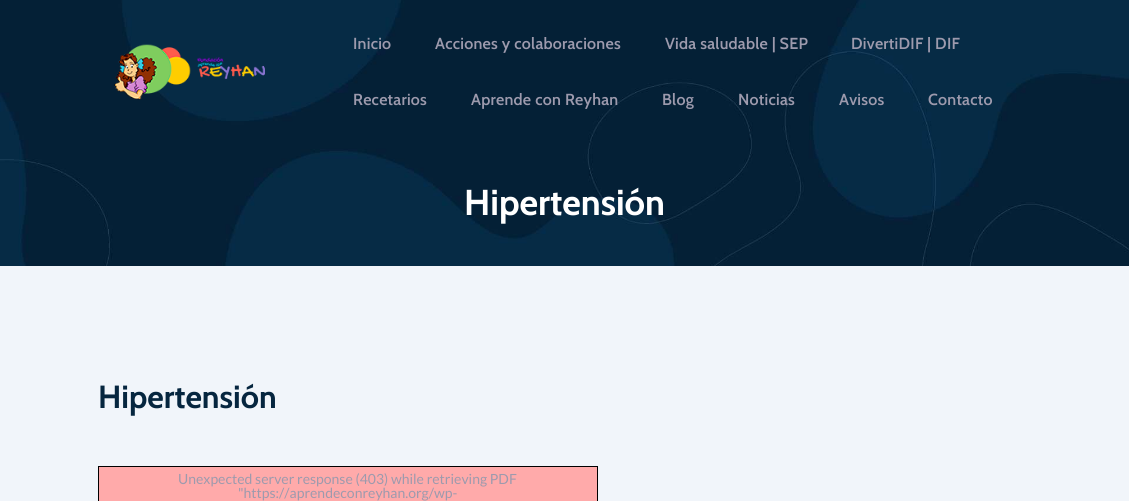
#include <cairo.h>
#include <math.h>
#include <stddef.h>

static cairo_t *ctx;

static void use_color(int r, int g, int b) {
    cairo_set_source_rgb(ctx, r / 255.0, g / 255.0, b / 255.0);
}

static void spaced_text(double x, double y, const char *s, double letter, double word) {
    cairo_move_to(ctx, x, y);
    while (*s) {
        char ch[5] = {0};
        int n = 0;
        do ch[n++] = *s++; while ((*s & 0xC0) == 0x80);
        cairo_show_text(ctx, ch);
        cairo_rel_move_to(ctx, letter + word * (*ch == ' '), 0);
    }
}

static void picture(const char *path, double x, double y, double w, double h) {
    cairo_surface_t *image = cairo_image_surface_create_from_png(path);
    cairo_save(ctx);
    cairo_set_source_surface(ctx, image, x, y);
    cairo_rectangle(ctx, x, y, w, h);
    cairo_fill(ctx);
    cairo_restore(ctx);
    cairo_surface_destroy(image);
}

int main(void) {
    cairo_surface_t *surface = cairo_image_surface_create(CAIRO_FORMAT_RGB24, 1129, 501);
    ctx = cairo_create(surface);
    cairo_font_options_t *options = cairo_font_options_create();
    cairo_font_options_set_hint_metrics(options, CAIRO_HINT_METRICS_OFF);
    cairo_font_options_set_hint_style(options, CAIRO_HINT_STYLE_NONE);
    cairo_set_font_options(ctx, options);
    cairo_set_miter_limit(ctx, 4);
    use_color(241, 245, 250);
    cairo_paint(ctx);
    picture("img1.png", 0, 0, 1129, 266);
    picture("img2.png", 114, 44, 151, 56);
    cairo_select_font_face(ctx, "Cabin SemiBold", CAIRO_FONT_SLANT_NORMAL, CAIRO_FONT_WEIGHT_NORMAL);
    cairo_set_font_size(ctx, 16);
    use_color(157, 154, 173);
    spaced_text(353, 49, "Inicio", 0.25, 0);
    spaced_text(435, 49, "Acciones y colaboraciones", 0.25, 0);
    spaced_text(665, 49, "Vida saludable | SEP", 0.25, 0);
    spaced_text(851, 49, "DivertiDIF | DIF", 0.25, 0);
    spaced_text(353, 105, "Recetarios", 0.25, 0);
    spaced_text(471, 105, "Aprende con Reyhan", 0.25, 0);
    spaced_text(662, 105, "Blog", 0.25, 0);
    spaced_text(738, 105, "Noticias", 0.25, 0);
    spaced_text(839, 105, "Avisos", 0.25, 0);
    spaced_text(928, 105, "Contacto", 0.25, 0);
    cairo_select_font_face(ctx, "Cabin", CAIRO_FONT_SLANT_NORMAL, CAIRO_FONT_WEIGHT_BOLD);
    cairo_set_font_size(ctx, 36);
    use_color(255, 255, 255);
    cairo_move_to(ctx, 464, 215);
    cairo_show_text(ctx, "Hipertensión");
    cairo_set_font_size(ctx, 32);
    use_color(6, 38, 63);
    cairo_move_to(ctx, 98, 408);
    cairo_show_text(ctx, "Hipertensión");
    cairo_rectangle(ctx, 98.5, 466.5, 499, 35);
    use_color(0, 0, 0);
    cairo_set_line_width(ctx, 1);
    cairo_stroke(ctx);
    use_color(255, 170, 170);
    cairo_rectangle(ctx, 99, 467, 498, 34);
    cairo_fill(ctx);
    cairo_select_font_face(ctx, "Lato", CAIRO_FONT_SLANT_NORMAL, CAIRO_FONT_WEIGHT_NORMAL);
    cairo_set_font_size(ctx, 14);
    use_color(157, 154, 173);
    cairo_move_to(ctx, 178, 484);
    cairo_show_text(ctx, "Unexpected server response (403) while retrieving PDF");
    cairo_move_to(ctx, 238, 498);
    cairo_show_text(ctx, "\"https://aprendeconreyhan.org/wp-");
    cairo_surface_write_to_png(surface, "result.png");
    cairo_font_options_destroy(options);
    cairo_destroy(ctx);
    cairo_surface_destroy(surface);
    return 0;
}
